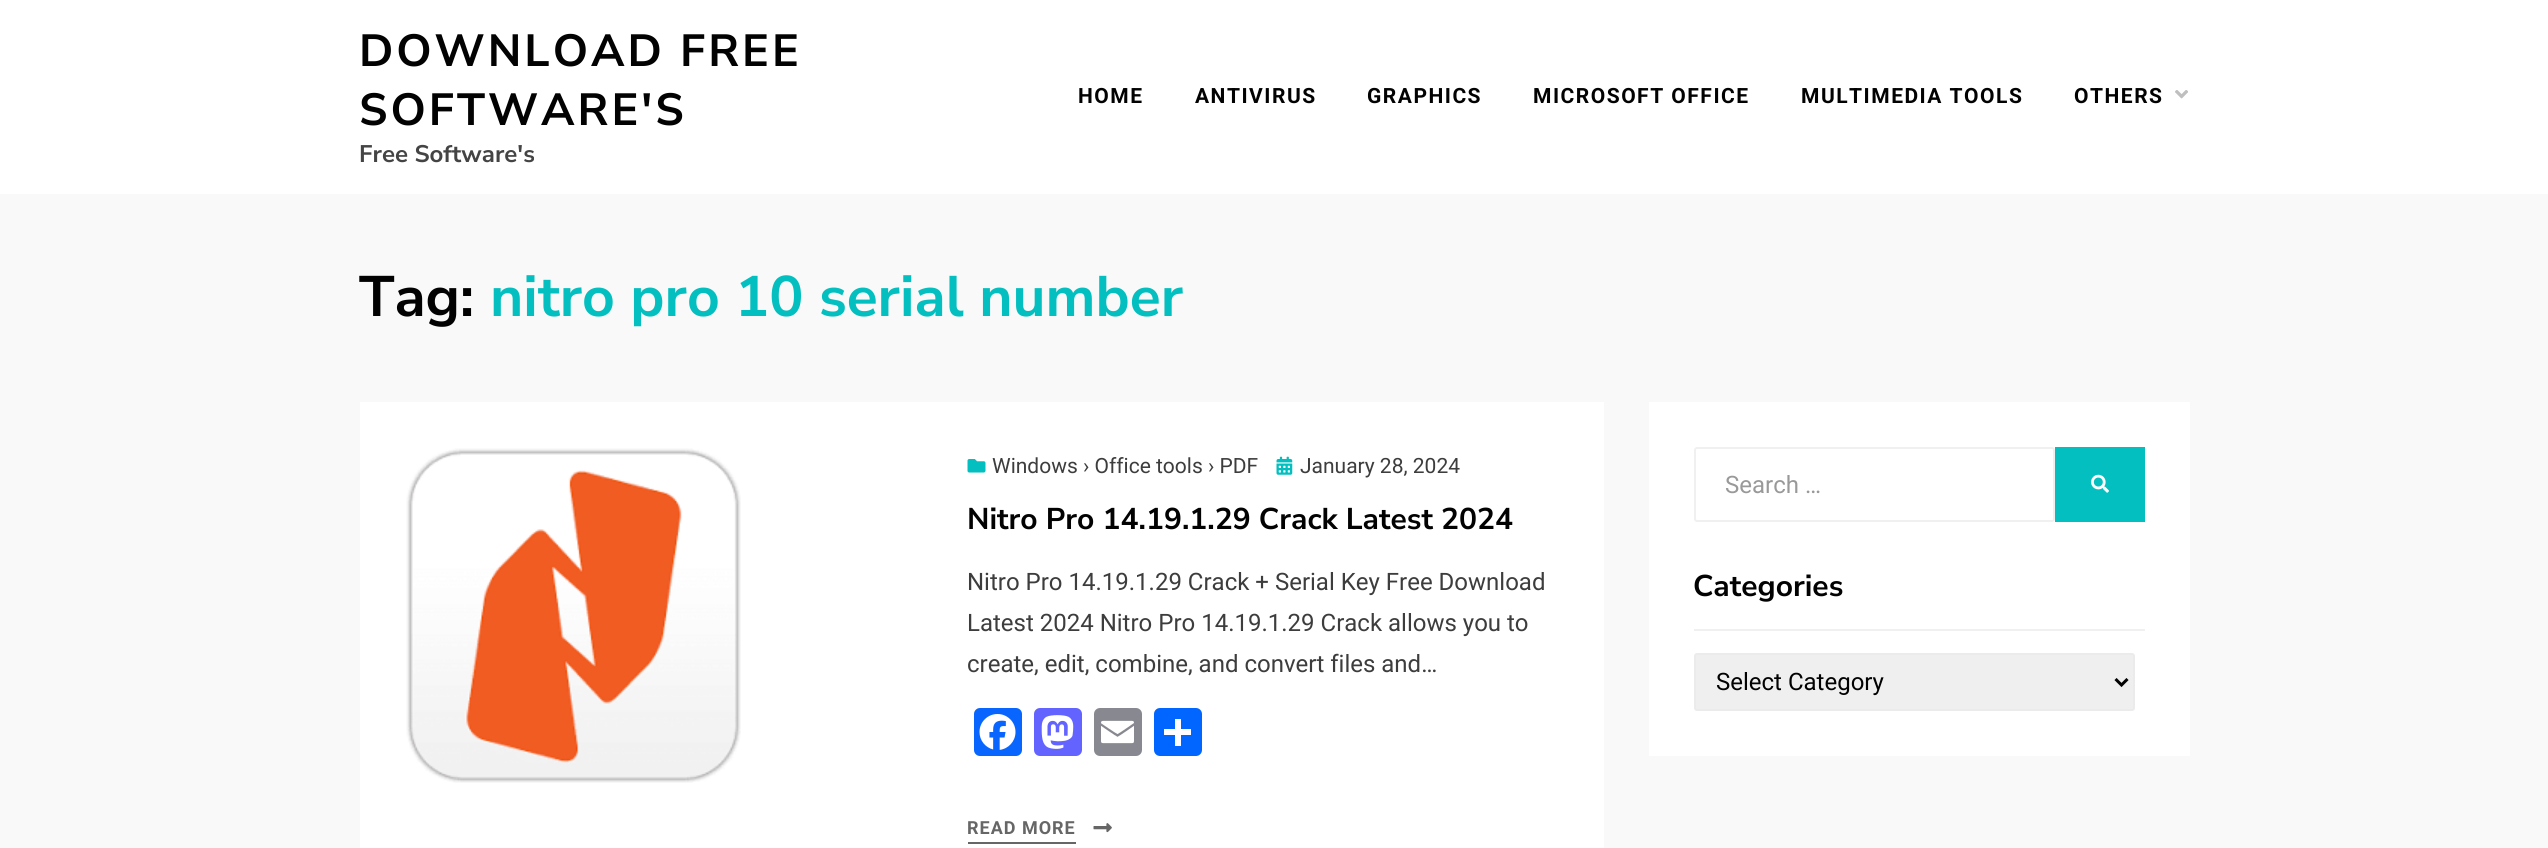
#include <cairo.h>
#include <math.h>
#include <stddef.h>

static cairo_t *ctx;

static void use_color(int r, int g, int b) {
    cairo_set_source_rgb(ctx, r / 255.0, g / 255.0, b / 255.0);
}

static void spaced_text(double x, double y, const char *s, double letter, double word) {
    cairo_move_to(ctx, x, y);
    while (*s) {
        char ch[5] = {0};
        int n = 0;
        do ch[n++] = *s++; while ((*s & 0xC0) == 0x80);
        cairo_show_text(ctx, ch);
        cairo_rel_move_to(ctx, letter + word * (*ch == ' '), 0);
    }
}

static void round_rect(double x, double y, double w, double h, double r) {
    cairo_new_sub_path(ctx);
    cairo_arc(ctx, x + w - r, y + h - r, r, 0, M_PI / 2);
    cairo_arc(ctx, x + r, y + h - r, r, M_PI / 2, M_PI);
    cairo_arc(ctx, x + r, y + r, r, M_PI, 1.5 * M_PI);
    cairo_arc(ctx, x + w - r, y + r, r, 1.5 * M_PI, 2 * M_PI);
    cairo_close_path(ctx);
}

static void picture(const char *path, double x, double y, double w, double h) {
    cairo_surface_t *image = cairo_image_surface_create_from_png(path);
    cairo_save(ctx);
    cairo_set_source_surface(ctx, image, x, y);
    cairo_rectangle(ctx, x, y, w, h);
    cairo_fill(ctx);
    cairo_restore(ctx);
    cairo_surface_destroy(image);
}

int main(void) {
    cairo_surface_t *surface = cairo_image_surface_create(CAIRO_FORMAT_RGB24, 2548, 848);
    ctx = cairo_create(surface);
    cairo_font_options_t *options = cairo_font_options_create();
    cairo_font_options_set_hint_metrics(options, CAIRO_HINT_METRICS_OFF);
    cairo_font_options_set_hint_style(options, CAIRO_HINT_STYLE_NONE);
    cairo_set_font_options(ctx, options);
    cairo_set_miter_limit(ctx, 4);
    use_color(249, 249, 249);
    cairo_paint(ctx);
    use_color(255, 255, 255);
    cairo_rectangle(ctx, 0, 0, 2548, 194);
    cairo_fill(ctx);
    cairo_select_font_face(ctx, "Nunito Sans", CAIRO_FONT_SLANT_NORMAL, CAIRO_FONT_WEIGHT_BOLD);
    cairo_set_font_size(ctx, 45);
    use_color(2, 2, 2);
    spaced_text(359, 66, "DOWNLOAD FREE", 3, 0);
    spaced_text(359, 125, "SOFTWARE'S", 3, 0);
    cairo_set_font_size(ctx, 24);
    use_color(68, 68, 68);
    cairo_move_to(ctx, 359, 162);
    cairo_show_text(ctx, "Free Software's");
    cairo_select_font_face(ctx, "Roboto", CAIRO_FONT_SLANT_NORMAL, CAIRO_FONT_WEIGHT_BOLD);
    cairo_set_font_size(ctx, 21);
    use_color(2, 2, 2);
    spaced_text(1078, 103, "HOME", 1.5, 0);
    spaced_text(1195, 103, "ANTIVIRUS", 1.5, 0);
    spaced_text(1367, 103, "GRAPHICS", 1.5, 0);
    spaced_text(1533, 103, "MICROSOFT OFFICE", 1.5, 0);
    spaced_text(1801, 103, "MULTIMEDIA TOOLS", 1.5, 0);
    spaced_text(2074, 103, "OTHERS", 1.5, 0);
    picture("img1.png", 2175, 90, 13, 9);
    cairo_select_font_face(ctx, "Nunito Sans", CAIRO_FONT_SLANT_NORMAL, CAIRO_FONT_WEIGHT_BOLD);
    cairo_set_font_size(ctx, 57);
    cairo_move_to(ctx, 359, 316);
    cairo_show_text(ctx, "Tag:");
    use_color(4, 191, 191);
    cairo_move_to(ctx, 490, 316);
    cairo_show_text(ctx, "nitro pro 10 serial number");
    use_color(255, 255, 255);
    cairo_rectangle(ctx, 360, 402, 1244, 446);
    cairo_fill(ctx);
    picture("img2.png", 406, 448, 335, 335);
    picture("img3.png", 967, 459, 19, 14);
    cairo_select_font_face(ctx, "Roboto", CAIRO_FONT_SLANT_NORMAL, CAIRO_FONT_WEIGHT_NORMAL);
    cairo_set_font_size(ctx, 21);
    use_color(61, 61, 61);
    cairo_move_to(ctx, 992, 473);
    cairo_show_text(ctx, "Windows › Office tools › PDF");
    picture("img4.png", 1276, 456, 17, 19);
    cairo_move_to(ctx, 1300, 473);
    cairo_show_text(ctx, "January 28, 2024");
    cairo_select_font_face(ctx, "Nunito Sans", CAIRO_FONT_SLANT_NORMAL, CAIRO_FONT_WEIGHT_BOLD);
    cairo_set_font_size(ctx, 30);
    use_color(2, 2, 2);
    cairo_move_to(ctx, 967, 529);
    cairo_show_text(ctx, "Nitro Pro 14.19.1.29 Crack Latest 2024");
    cairo_select_font_face(ctx, "Roboto", CAIRO_FONT_SLANT_NORMAL, CAIRO_FONT_WEIGHT_NORMAL);
    cairo_set_font_size(ctx, 24);
    use_color(61, 61, 61);
    cairo_move_to(ctx, 967, 590);
    cairo_show_text(ctx, "Nitro Pro 14.19.1.29 Crack + Serial Key Free Download");
    cairo_move_to(ctx, 967, 631);
    cairo_show_text(ctx, "Latest 2024 Nitro Pro 14.19.1.29 Crack allows you to");
    cairo_move_to(ctx, 967, 672);
    cairo_show_text(ctx, "create, edit, combine, and convert files and…");
    use_color(8, 102, 255);
    round_rect(974, 708, 48, 48, 6);
    cairo_fill(ctx);
    picture("img5.png", 979, 714, 37, 36);
    use_color(99, 100, 255);
    round_rect(1034, 708, 48, 48, 6);
    cairo_fill(ctx);
    picture("img6.png", 1041, 715, 33, 34);
    use_color(136, 137, 144);
    round_rect(1094, 708, 48, 48, 6);
    cairo_fill(ctx);
    picture("img7.png", 1101, 720, 33, 24);
    use_color(1, 102, 255);
    round_rect(1154, 708, 48, 48, 6);
    cairo_fill(ctx);
    use_color(255, 255, 255);
    cairo_rectangle(ctx, 1175, 719, 6, 27);
    cairo_fill(ctx);
    cairo_rectangle(ctx, 1164, 729, 27, 6);
    cairo_fill(ctx);
    cairo_select_font_face(ctx, "Roboto", CAIRO_FONT_SLANT_NORMAL, CAIRO_FONT_WEIGHT_BOLD);
    cairo_set_font_size(ctx, 18);
    use_color(102, 102, 102);
    spaced_text(967, 834, "READ MORE", 1, 0);
    picture("img8.png", 1093, 823, 19, 10);
    cairo_rectangle(ctx, 968, 842, 108, 2);
    cairo_fill(ctx);
    use_color(255, 255, 255);
    cairo_rectangle(ctx, 1649, 402, 541, 354);
    cairo_fill(ctx);
    round_rect(1695, 448, 359, 73, 2);
    use_color(240, 240, 240);
    cairo_stroke(ctx);
    cairo_select_font_face(ctx, "Roboto", CAIRO_FONT_SLANT_NORMAL, CAIRO_FONT_WEIGHT_NORMAL);
    cairo_set_font_size(ctx, 24);
    use_color(153, 153, 153);
    cairo_move_to(ctx, 1725, 493);
    cairo_show_text(ctx, "Search …");
    use_color(4, 191, 191);
    cairo_rectangle(ctx, 2055, 447, 90, 75);
    cairo_fill(ctx);
    picture("img9.png", 2091, 474, 18, 19);
    use_color(240, 240, 240);
    cairo_rectangle(ctx, 1694, 629, 451, 2);
    cairo_fill(ctx);
    cairo_select_font_face(ctx, "Nunito Sans", CAIRO_FONT_SLANT_NORMAL, CAIRO_FONT_WEIGHT_BOLD);
    cairo_set_font_size(ctx, 30);
    use_color(2, 2, 2);
    cairo_move_to(ctx, 1693, 596);
    cairo_show_text(ctx, "Categories");
    use_color(239, 239, 239);
    round_rect(1695, 654, 439, 56, 2);
    cairo_fill_preserve(ctx);
    use_color(235, 235, 235);
    cairo_stroke(ctx);
    cairo_new_path(ctx);
    cairo_move_to(ctx, 2115.5, 679);
    cairo_line_to(ctx, 2121.5, 685);
    cairo_line_to(ctx, 2127.5, 679);
    use_color(2, 2, 2);
    cairo_set_line_width(ctx, 3);
    cairo_stroke(ctx);
    cairo_select_font_face(ctx, "Roboto", CAIRO_FONT_SLANT_NORMAL, CAIRO_FONT_WEIGHT_NORMAL);
    cairo_set_font_size(ctx, 24);
    cairo_move_to(ctx, 1716, 690);
    cairo_show_text(ctx, "Select Category");
    cairo_surface_write_to_png(surface, "result.png");
    cairo_font_options_destroy(options);
    cairo_destroy(ctx);
    cairo_surface_destroy(surface);
    return 0;
}
